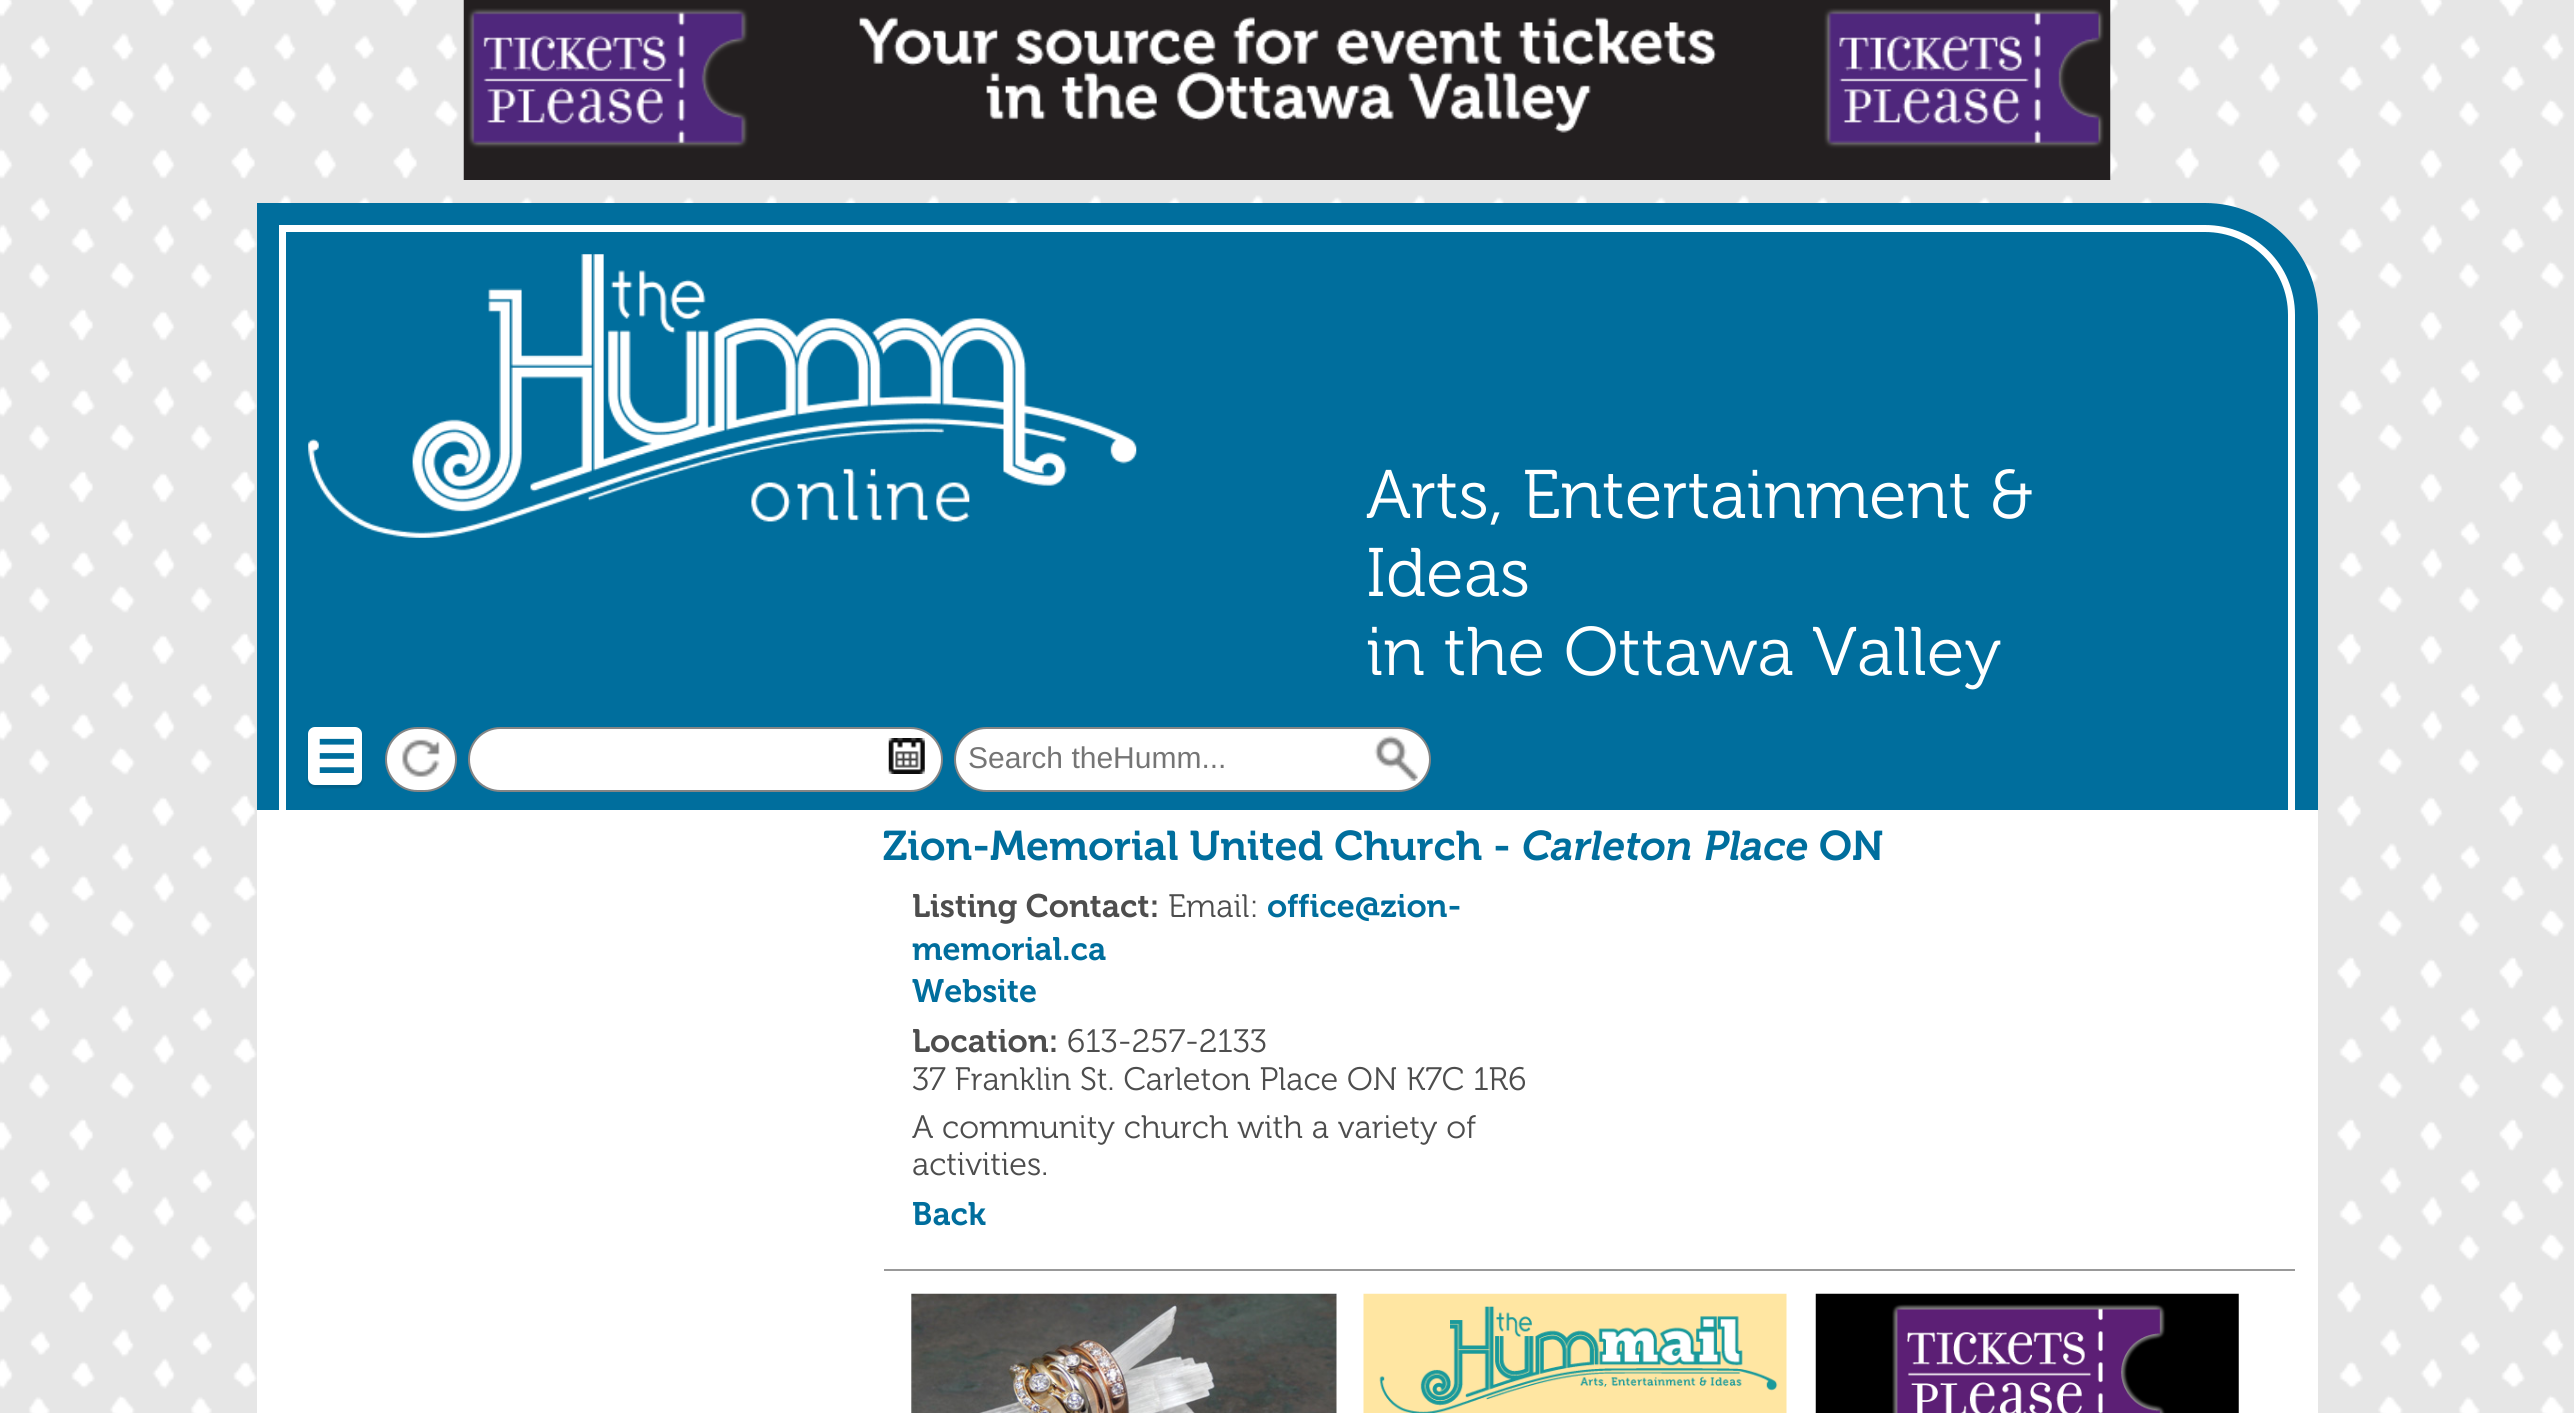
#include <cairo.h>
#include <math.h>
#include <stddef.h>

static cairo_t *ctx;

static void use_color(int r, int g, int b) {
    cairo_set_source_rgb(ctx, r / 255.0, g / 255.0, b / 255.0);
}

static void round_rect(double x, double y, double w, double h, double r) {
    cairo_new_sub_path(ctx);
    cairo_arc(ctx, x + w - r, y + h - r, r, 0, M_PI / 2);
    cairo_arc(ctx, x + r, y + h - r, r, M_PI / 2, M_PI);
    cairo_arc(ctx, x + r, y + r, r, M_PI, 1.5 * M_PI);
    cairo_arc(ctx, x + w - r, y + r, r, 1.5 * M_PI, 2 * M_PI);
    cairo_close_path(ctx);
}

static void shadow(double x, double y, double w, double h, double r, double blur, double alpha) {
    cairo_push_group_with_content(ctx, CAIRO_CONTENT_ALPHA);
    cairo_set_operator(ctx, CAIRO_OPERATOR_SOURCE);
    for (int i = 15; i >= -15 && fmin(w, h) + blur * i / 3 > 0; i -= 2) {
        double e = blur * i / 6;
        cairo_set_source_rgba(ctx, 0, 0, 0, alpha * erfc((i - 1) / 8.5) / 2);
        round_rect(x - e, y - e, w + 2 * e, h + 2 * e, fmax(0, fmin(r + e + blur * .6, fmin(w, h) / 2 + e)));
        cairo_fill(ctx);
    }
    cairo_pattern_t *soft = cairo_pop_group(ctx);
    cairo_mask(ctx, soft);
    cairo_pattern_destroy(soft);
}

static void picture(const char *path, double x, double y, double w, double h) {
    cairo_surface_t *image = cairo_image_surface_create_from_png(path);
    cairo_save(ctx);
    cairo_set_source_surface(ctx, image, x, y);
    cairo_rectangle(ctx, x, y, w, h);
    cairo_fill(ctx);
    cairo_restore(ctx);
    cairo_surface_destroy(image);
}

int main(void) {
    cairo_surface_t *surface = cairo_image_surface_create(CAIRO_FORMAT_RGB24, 2574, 1413);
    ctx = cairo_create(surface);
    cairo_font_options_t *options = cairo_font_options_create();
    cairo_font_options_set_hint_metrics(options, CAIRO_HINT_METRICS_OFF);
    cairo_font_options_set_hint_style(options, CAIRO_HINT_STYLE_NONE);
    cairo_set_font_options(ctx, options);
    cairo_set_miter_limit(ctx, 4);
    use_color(255, 255, 255);
    cairo_paint(ctx);
    picture("img1.png", 0, 0, 2574, 1413);
    picture("img2.png", 463, 0, 1648, 180);
    use_color(0, 110, 157);
    cairo_new_path(ctx);
    cairo_move_to(ctx, 257, 203);
    cairo_line_to(ctx, 2205, 203);
    cairo_curve_to(ctx, 2267.5, 203, 2318, 253.5, 2318, 316);
    cairo_line_to(ctx, 2318, 716);
    cairo_line_to(ctx, 257, 716);
    cairo_close_path(ctx);
    cairo_fill(ctx);
    use_color(255, 255, 255);
    cairo_set_fill_rule(ctx, CAIRO_FILL_RULE_EVEN_ODD);
    cairo_new_path(ctx);
    cairo_move_to(ctx, 279, 225);
    cairo_line_to(ctx, 2205, 225);
    cairo_curve_to(ctx, 2255, 225, 2295, 265, 2295, 315);
    cairo_line_to(ctx, 2295, 704);
    cairo_line_to(ctx, 279, 704);
    cairo_close_path(ctx);
    cairo_move_to(ctx, 286, 232);
    cairo_line_to(ctx, 2205, 232);
    cairo_curve_to(ctx, 2251, 232, 2288, 269, 2288, 315);
    cairo_line_to(ctx, 2288, 704);
    cairo_line_to(ctx, 286, 704);
    cairo_close_path(ctx);
    cairo_fill(ctx);
    picture("img3.png", 308, 254, 829, 284);
    cairo_select_font_face(ctx, "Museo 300 Light", CAIRO_FONT_SLANT_NORMAL, CAIRO_FONT_WEIGHT_NORMAL);
    cairo_set_font_size(ctx, 68.5);
    cairo_move_to(ctx, 1366, 518);
    cairo_show_text(ctx, "Arts, Entertainment &");
    cairo_move_to(ctx, 1366, 596);
    cairo_show_text(ctx, "Ideas");
    cairo_move_to(ctx, 1366, 675);
    cairo_show_text(ctx, "in the Ottawa Valley");
    use_color(0, 110, 157);
    cairo_rectangle(ctx, 257, 716, 2061, 94);
    cairo_fill(ctx);
    use_color(255, 255, 255);
    cairo_rectangle(ctx, 2288, 704, 7, 106);
    cairo_fill(ctx);
    cairo_rectangle(ctx, 279, 704, 7, 106);
    cairo_fill(ctx);
    use_color(0, 0, 0);
    shadow(308, 729, 54, 59, 7, 1, 0.15);
    use_color(255, 255, 255);
    round_rect(308, 727, 54, 58, 7);
    cairo_fill(ctx);
    cairo_select_font_face(ctx, "DejaVu Sans", CAIRO_FONT_SLANT_NORMAL, CAIRO_FONT_WEIGHT_BOLD);
    cairo_set_font_size(ctx, 45);
    use_color(0, 110, 157);
    cairo_move_to(ctx, 316, 773);
    cairo_show_text(ctx, "☰");
    use_color(255, 255, 255);
    round_rect(386, 728, 70, 63, 31.5);
    cairo_fill_preserve(ctx);
    use_color(133, 133, 133);
    cairo_stroke(ctx);
    picture("img4.png", 402, 739, 38, 38);
    use_color(255, 255, 255);
    round_rect(469, 728, 473, 63, 31.5);
    cairo_fill_preserve(ctx);
    use_color(133, 133, 133);
    cairo_stroke(ctx);
    picture("img5.png", 888, 738, 37, 36);
    use_color(255, 255, 255);
    round_rect(955, 728, 475, 63, 31.5);
    cairo_fill_preserve(ctx);
    use_color(133, 133, 133);
    cairo_stroke(ctx);
    cairo_select_font_face(ctx, "Liberation Sans", CAIRO_FONT_SLANT_NORMAL, CAIRO_FONT_WEIGHT_NORMAL);
    cairo_set_font_size(ctx, 30);
    use_color(117, 117, 117);
    cairo_move_to(ctx, 968, 768);
    cairo_show_text(ctx, "Search theHumm...");
    picture("img6.png", 1374, 735, 44, 46);
    use_color(255, 255, 255);
    cairo_rectangle(ctx, 257, 810, 2061, 603);
    cairo_fill(ctx);
    cairo_select_font_face(ctx, "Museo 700 SemiBold", CAIRO_FONT_SLANT_NORMAL, CAIRO_FONT_WEIGHT_NORMAL);
    cairo_set_font_size(ctx, 41.4);
    use_color(0, 110, 157);
    cairo_move_to(ctx, 883, 860);
    cairo_show_text(ctx, "Zion-Memorial United Church");
    cairo_move_to(ctx, 1493, 860);
    cairo_show_text(ctx, "-");
    cairo_select_font_face(ctx, "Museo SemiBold", CAIRO_FONT_SLANT_ITALIC, CAIRO_FONT_WEIGHT_NORMAL);
    cairo_move_to(ctx, 1522, 860);
    cairo_show_text(ctx, "Carleton Place");
    cairo_select_font_face(ctx, "Museo 700 SemiBold", CAIRO_FONT_SLANT_NORMAL, CAIRO_FONT_WEIGHT_NORMAL);
    cairo_move_to(ctx, 1819, 860);
    cairo_show_text(ctx, "ON");
    cairo_set_font_size(ctx, 32.4);
    use_color(77, 77, 77);
    cairo_move_to(ctx, 912, 917);
    cairo_show_text(ctx, "Listing Contact:");
    cairo_select_font_face(ctx, "Museo 300 Light", CAIRO_FONT_SLANT_NORMAL, CAIRO_FONT_WEIGHT_NORMAL);
    cairo_move_to(ctx, 1168, 917);
    cairo_show_text(ctx, "Email:");
    cairo_select_font_face(ctx, "Museo 700 SemiBold", CAIRO_FONT_SLANT_NORMAL, CAIRO_FONT_WEIGHT_NORMAL);
    use_color(0, 110, 157);
    cairo_move_to(ctx, 1267, 917);
    cairo_show_text(ctx, "office@zion-");
    cairo_move_to(ctx, 912, 960);
    cairo_show_text(ctx, "memorial.ca");
    cairo_move_to(ctx, 912, 1002);
    cairo_show_text(ctx, "Website");
    use_color(77, 77, 77);
    cairo_move_to(ctx, 912, 1052);
    cairo_show_text(ctx, "Location:");
    cairo_select_font_face(ctx, "Museo 300 Light", CAIRO_FONT_SLANT_NORMAL, CAIRO_FONT_WEIGHT_NORMAL);
    cairo_move_to(ctx, 1067, 1052);
    cairo_show_text(ctx, "613-257-2133");
    cairo_move_to(ctx, 912, 1090);
    cairo_show_text(ctx, "37 Franklin St. Carleton Place ON K7C 1R6");
    cairo_move_to(ctx, 912, 1138);
    cairo_show_text(ctx, "A community church with a variety of");
    cairo_move_to(ctx, 912, 1175);
    cairo_show_text(ctx, "activities.");
    cairo_select_font_face(ctx, "Museo 700 SemiBold", CAIRO_FONT_SLANT_NORMAL, CAIRO_FONT_WEIGHT_NORMAL);
    use_color(0, 110, 157);
    cairo_move_to(ctx, 912, 1225);
    cairo_show_text(ctx, "Back");
    use_color(153, 153, 153);
    cairo_rectangle(ctx, 884, 1269, 1411, 2);
    cairo_fill(ctx);
    picture("img7.png", 911, 1293, 426, 120);
    picture("img8.png", 1363, 1293, 424, 120);
    picture("img9.png", 1815, 1293, 424, 120);
    cairo_surface_write_to_png(surface, "result.png");
    cairo_font_options_destroy(options);
    cairo_destroy(ctx);
    cairo_surface_destroy(surface);
    return 0;
}
